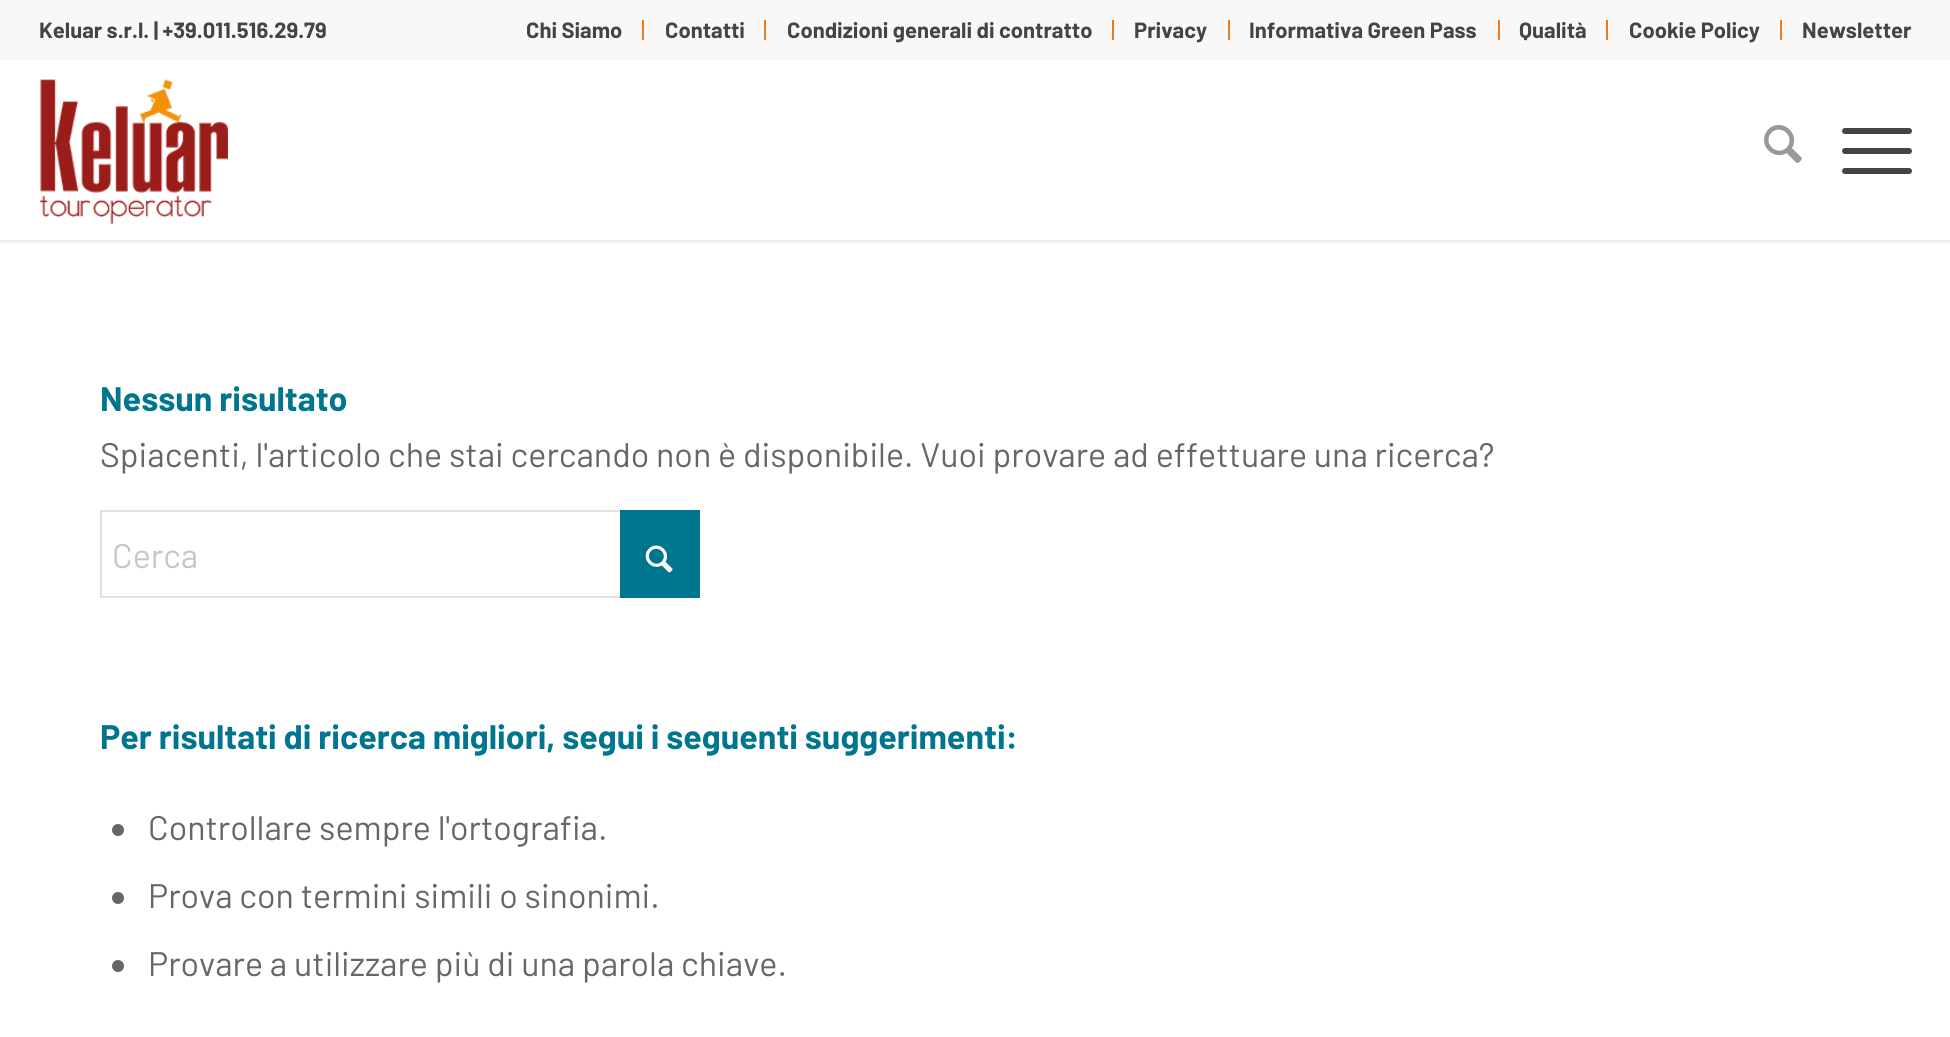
#include <cairo.h>
#include <math.h>
#include <stddef.h>

static cairo_t *ctx;

static void use_color(int r, int g, int b) {
    cairo_set_source_rgb(ctx, r / 255.0, g / 255.0, b / 255.0);
}

static void round_rect(double x, double y, double w, double h, double r) {
    cairo_new_sub_path(ctx);
    cairo_arc(ctx, x + w - r, y + h - r, r, 0, M_PI / 2);
    cairo_arc(ctx, x + r, y + h - r, r, M_PI / 2, M_PI);
    cairo_arc(ctx, x + r, y + r, r, M_PI, 1.5 * M_PI);
    cairo_arc(ctx, x + w - r, y + r, r, 1.5 * M_PI, 2 * M_PI);
    cairo_close_path(ctx);
}

static void shadow(double x, double y, double w, double h, double r, double blur, double alpha) {
    cairo_push_group_with_content(ctx, CAIRO_CONTENT_ALPHA);
    cairo_set_operator(ctx, CAIRO_OPERATOR_SOURCE);
    for (int i = 15; i >= -15 && fmin(w, h) + blur * i / 3 > 0; i -= 2) {
        double e = blur * i / 6;
        cairo_set_source_rgba(ctx, 0, 0, 0, alpha * erfc((i - 1) / 8.5) / 2);
        round_rect(x - e, y - e, w + 2 * e, h + 2 * e, fmax(0, fmin(r + e + blur * .6, fmin(w, h) / 2 + e)));
        cairo_fill(ctx);
    }
    cairo_pattern_t *soft = cairo_pop_group(ctx);
    cairo_mask(ctx, soft);
    cairo_pattern_destroy(soft);
}

static void picture(const char *path, double x, double y, double w, double h) {
    cairo_surface_t *image = cairo_image_surface_create_from_png(path);
    cairo_save(ctx);
    cairo_set_source_surface(ctx, image, x, y);
    cairo_rectangle(ctx, x, y, w, h);
    cairo_fill(ctx);
    cairo_restore(ctx);
    cairo_surface_destroy(image);
}

int main(void) {
    cairo_surface_t *surface = cairo_image_surface_create(CAIRO_FORMAT_RGB24, 1950, 1037);
    ctx = cairo_create(surface);
    cairo_font_options_t *options = cairo_font_options_create();
    cairo_font_options_set_hint_metrics(options, CAIRO_HINT_METRICS_OFF);
    cairo_font_options_set_hint_style(options, CAIRO_HINT_STYLE_NONE);
    cairo_set_font_options(ctx, options);
    cairo_set_miter_limit(ctx, 4);
    use_color(255, 255, 255);
    cairo_paint(ctx);
    cairo_save(ctx);
    cairo_rectangle(ctx, 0, 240, 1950, 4);
    cairo_clip(ctx);
    use_color(0, 0, 0);
    shadow(-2, -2, 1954, 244, 0, 2, 0.1);
    cairo_restore(ctx);
    use_color(248, 248, 248);
    cairo_rectangle(ctx, 0, 0, 1950, 60);
    cairo_fill(ctx);
    cairo_select_font_face(ctx, "Barlow", CAIRO_FONT_SLANT_NORMAL, CAIRO_FONT_WEIGHT_BOLD);
    cairo_set_font_size(ctx, 22);
    use_color(68, 68, 68);
    cairo_move_to(ctx, 39, 38);
    cairo_show_text(ctx, "Keluar s.r.l. | +39.011.516.29.79");
    use_color(236, 122, 29);
    cairo_rectangle(ctx, 642, 20, 2, 20);
    cairo_fill(ctx);
    use_color(68, 68, 68);
    cairo_move_to(ctx, 526, 38);
    cairo_show_text(ctx, "Chi Siamo");
    use_color(236, 122, 29);
    cairo_rectangle(ctx, 764, 20, 2, 20);
    cairo_fill(ctx);
    use_color(68, 68, 68);
    cairo_move_to(ctx, 665, 38);
    cairo_show_text(ctx, "Contatti");
    use_color(236, 122, 29);
    cairo_rectangle(ctx, 1112, 20, 2, 20);
    cairo_fill(ctx);
    use_color(68, 68, 68);
    cairo_move_to(ctx, 787, 38);
    cairo_show_text(ctx, "Condizioni generali di contratto");
    use_color(236, 122, 29);
    cairo_rectangle(ctx, 1228, 20, 2, 20);
    cairo_fill(ctx);
    use_color(68, 68, 68);
    cairo_move_to(ctx, 1134, 38);
    cairo_show_text(ctx, "Privacy");
    use_color(236, 122, 29);
    cairo_rectangle(ctx, 1498, 20, 2, 20);
    cairo_fill(ctx);
    use_color(68, 68, 68);
    cairo_move_to(ctx, 1249, 38);
    cairo_show_text(ctx, "Informativa Green Pass");
    use_color(236, 122, 29);
    cairo_rectangle(ctx, 1606, 20, 2, 20);
    cairo_fill(ctx);
    use_color(68, 68, 68);
    cairo_move_to(ctx, 1519, 38);
    cairo_show_text(ctx, "Qualità");
    use_color(236, 122, 29);
    cairo_rectangle(ctx, 1780, 20, 2, 20);
    cairo_fill(ctx);
    use_color(68, 68, 68);
    cairo_move_to(ctx, 1629, 38);
    cairo_show_text(ctx, "Cookie Policy");
    cairo_move_to(ctx, 1802, 38);
    cairo_show_text(ctx, "Newsletter");
    picture("img1.png", 40, 79, 188, 145);
    picture("img2.png", 1764, 125, 38, 38);
    round_rect(1842, 148, 70, 6, 3);
    cairo_fill(ctx);
    round_rect(1842, 128, 70, 6, 3);
    cairo_fill(ctx);
    round_rect(1842, 168, 70, 6, 3);
    cairo_fill(ctx);
    cairo_set_font_size(ctx, 34);
    use_color(0, 117, 143);
    cairo_move_to(ctx, 100, 411);
    cairo_show_text(ctx, "Nessun risultato");
    cairo_select_font_face(ctx, "Barlow", CAIRO_FONT_SLANT_NORMAL, CAIRO_FONT_WEIGHT_NORMAL);
    use_color(102, 102, 102);
    cairo_move_to(ctx, 100, 467);
    cairo_show_text(ctx, "Spiacenti, l'articolo che stai cercando non è disponibile. Vuoi provare ad effettuare una ricerca?");
    cairo_rectangle(ctx, 101, 511, 598, 86);
    use_color(225, 225, 225);
    cairo_stroke(ctx);
    use_color(198, 198, 198);
    cairo_move_to(ctx, 112, 568);
    cairo_show_text(ctx, "Cerca");
    use_color(0, 117, 143);
    cairo_rectangle(ctx, 620, 510, 80, 88);
    cairo_fill(ctx);
    picture("img3.png", 645, 545, 28, 28);
    cairo_select_font_face(ctx, "Barlow", CAIRO_FONT_SLANT_NORMAL, CAIRO_FONT_WEIGHT_BOLD);
    cairo_move_to(ctx, 100, 749);
    cairo_show_text(ctx, "Per risultati di ricerca migliori, segui i seguenti suggerimenti:");
    use_color(102, 102, 102);
    cairo_new_path(ctx);
    cairo_arc(ctx, 118, 830, 6, 0, 2 * M_PI);
    cairo_fill(ctx);
    cairo_select_font_face(ctx, "Barlow", CAIRO_FONT_SLANT_NORMAL, CAIRO_FONT_WEIGHT_NORMAL);
    cairo_move_to(ctx, 148, 840);
    cairo_show_text(ctx, "Controllare sempre l'ortografia.");
    cairo_new_path(ctx);
    cairo_arc(ctx, 118, 898, 6, 0, 2 * M_PI);
    cairo_fill(ctx);
    cairo_move_to(ctx, 148, 908);
    cairo_show_text(ctx, "Prova con termini simili o sinonimi.");
    cairo_new_path(ctx);
    cairo_arc(ctx, 118, 966, 6, 0, 2 * M_PI);
    cairo_fill(ctx);
    cairo_move_to(ctx, 148, 976);
    cairo_show_text(ctx, "Provare a utilizzare più di una parola chiave.");
    cairo_surface_write_to_png(surface, "result.png");
    cairo_font_options_destroy(options);
    cairo_destroy(ctx);
    cairo_surface_destroy(surface);
    return 0;
}
